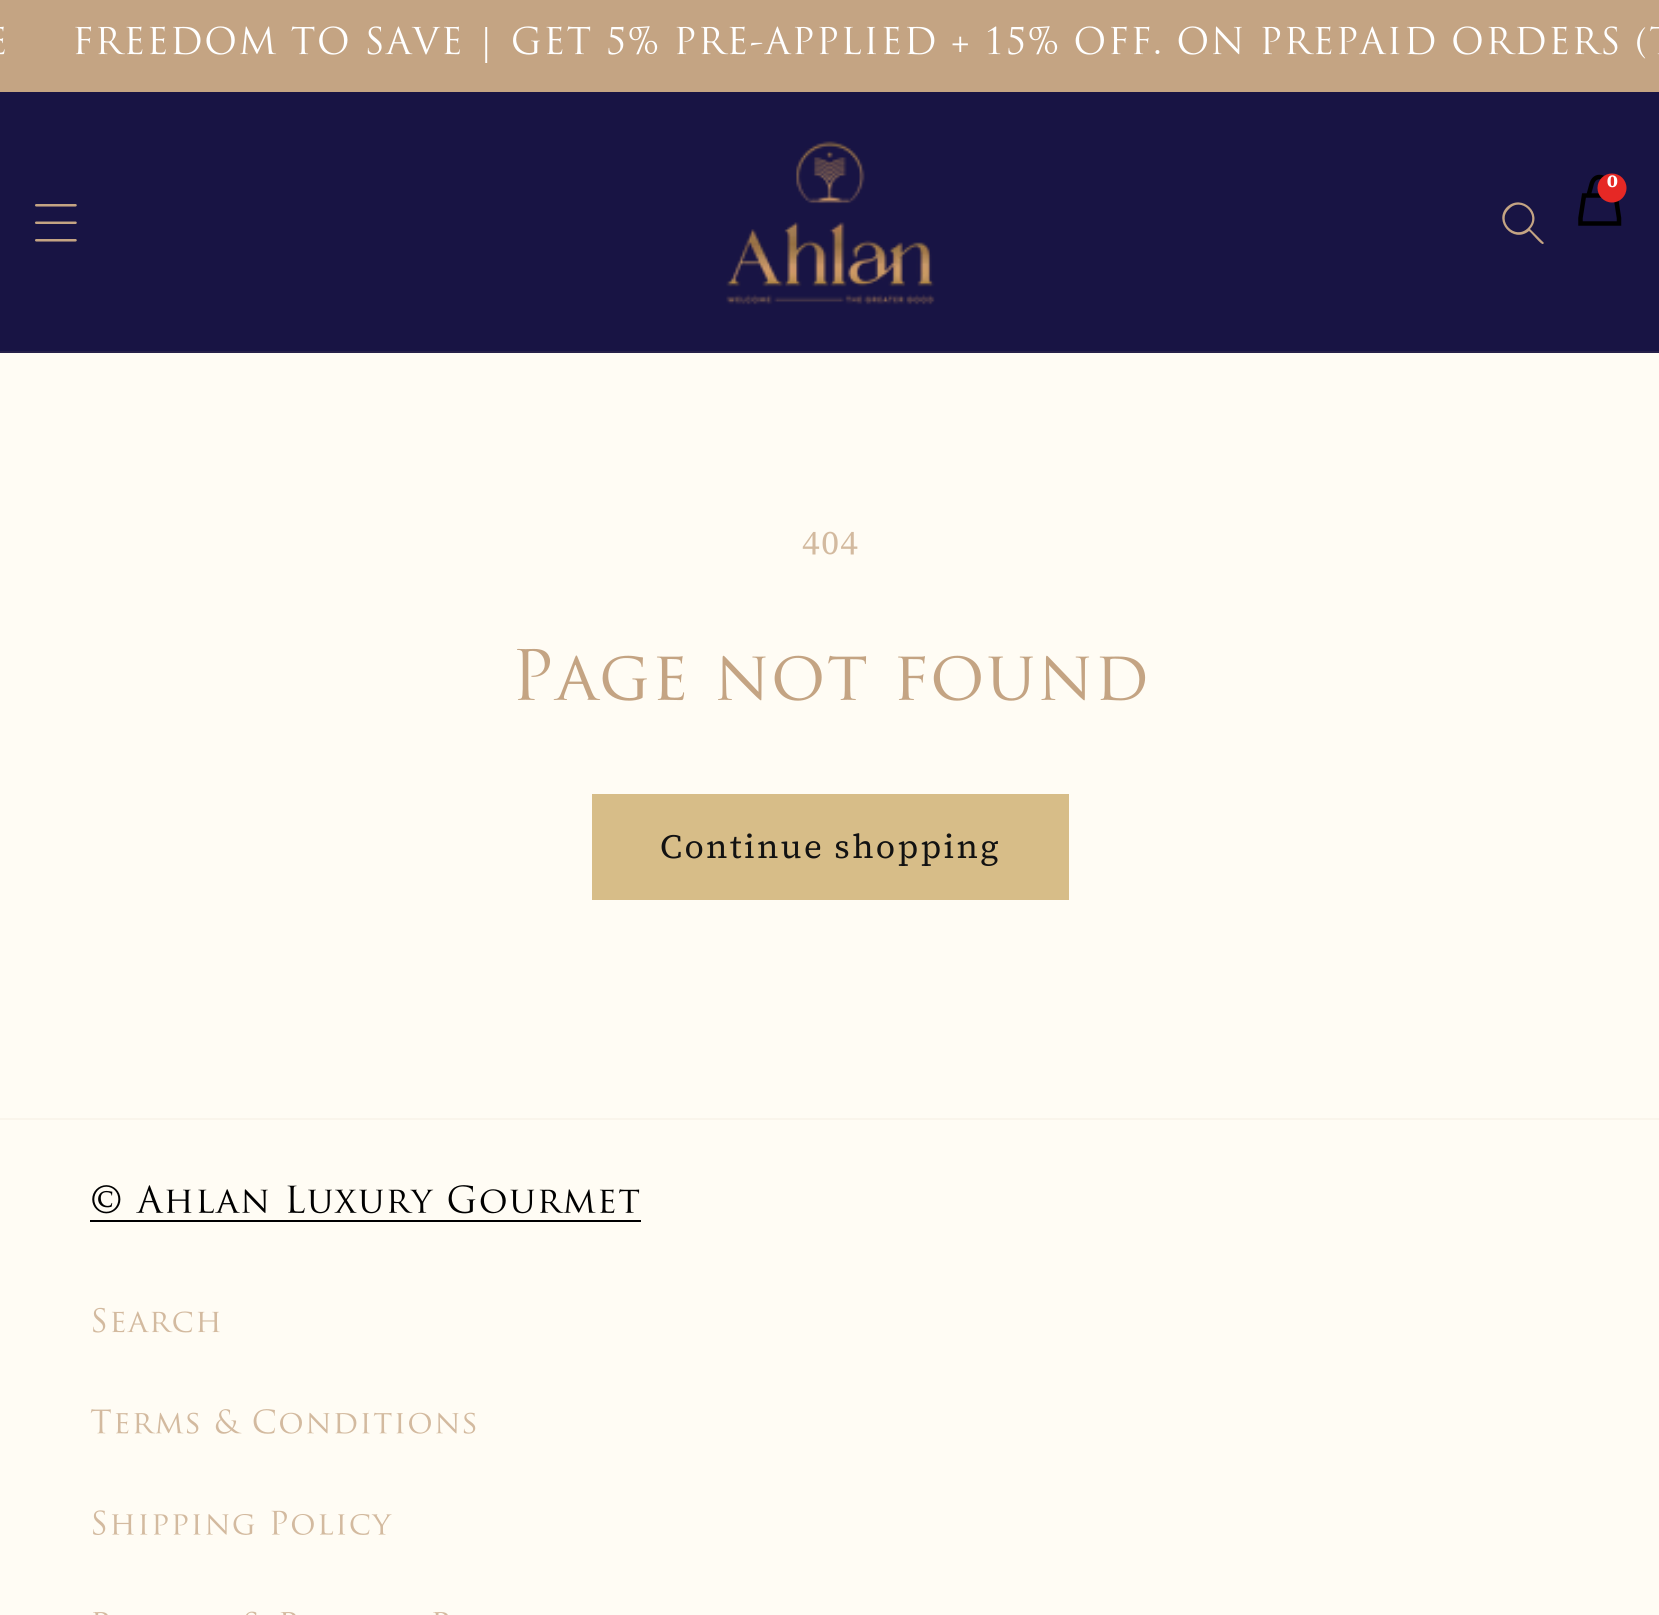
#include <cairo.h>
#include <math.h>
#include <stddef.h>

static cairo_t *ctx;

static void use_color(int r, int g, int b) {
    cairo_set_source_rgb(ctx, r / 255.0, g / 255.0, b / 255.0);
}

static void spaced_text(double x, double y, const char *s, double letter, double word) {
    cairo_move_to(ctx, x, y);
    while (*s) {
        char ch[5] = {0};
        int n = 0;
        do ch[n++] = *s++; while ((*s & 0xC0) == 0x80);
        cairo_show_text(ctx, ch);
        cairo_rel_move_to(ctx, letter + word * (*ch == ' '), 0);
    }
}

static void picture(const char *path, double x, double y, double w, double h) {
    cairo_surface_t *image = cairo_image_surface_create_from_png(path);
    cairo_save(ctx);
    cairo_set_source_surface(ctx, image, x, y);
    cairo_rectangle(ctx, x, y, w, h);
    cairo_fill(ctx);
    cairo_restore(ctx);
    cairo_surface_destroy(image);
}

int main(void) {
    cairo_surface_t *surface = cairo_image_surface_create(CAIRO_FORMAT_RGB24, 1659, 1615);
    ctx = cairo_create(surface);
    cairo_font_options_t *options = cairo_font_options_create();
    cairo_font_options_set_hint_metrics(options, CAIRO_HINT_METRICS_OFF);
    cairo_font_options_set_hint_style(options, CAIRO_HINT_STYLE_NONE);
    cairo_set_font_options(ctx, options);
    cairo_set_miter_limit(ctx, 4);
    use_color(255, 252, 244);
    cairo_paint(ctx);
    use_color(196, 164, 131);
    cairo_rectangle(ctx, 0, 0, 1659, 92);
    cairo_fill(ctx);
    picture("img1.png", 0, 26, 5, 29);
    picture("img2.png", 75, 26, 413, 37);
    picture("img3.png", 513, 26, 1146, 33);
    use_color(24, 20, 68);
    cairo_rectangle(ctx, 0, 92, 1659, 259);
    cairo_fill(ctx);
    use_color(38, 32, 73);
    cairo_rectangle(ctx, 0, 351, 1659, 2);
    cairo_fill(ctx);
    picture("img4.png", 726, 141, 209, 164);
    cairo_new_path(ctx);
    cairo_move_to(ctx, 1588.5, 195.5);
    cairo_line_to(ctx, 1591.5, 184.5);
    cairo_curve_to(ctx, 1592.5, 180.5, 1595, 177, 1599.5, 177);
    cairo_curve_to(ctx, 1604, 177, 1606, 180, 1607.5, 184.5);
    cairo_line_to(ctx, 1611, 195.5);
    cairo_move_to(ctx, 1580.5, 218);
    cairo_line_to(ctx, 1584, 195.5);
    cairo_line_to(ctx, 1615.5, 195.5);
    cairo_line_to(ctx, 1619, 218);
    cairo_line_to(ctx, 1619, 223.5);
    cairo_line_to(ctx, 1580.5, 223.5);
    cairo_close_path(ctx);
    use_color(0, 0, 0);
    cairo_set_line_width(ctx, 4.5);
    cairo_stroke(ctx);
    use_color(230, 40, 37);
    cairo_arc(ctx, 1612, 188, 14.5, 0, 2 * M_PI);
    cairo_fill(ctx);
    cairo_select_font_face(ctx, "Source Serif 4", CAIRO_FONT_SLANT_NORMAL, CAIRO_FONT_WEIGHT_BOLD);
    cairo_set_font_size(ctx, 18);
    use_color(255, 255, 255);
    spaced_text(1607, 187, "0", 1.5, 0);
    use_color(196, 164, 131);
    cairo_set_fill_rule(ctx, CAIRO_FILL_RULE_EVEN_ODD);
    cairo_new_path(ctx);
    cairo_move_to(ctx, 1528, 228);
    cairo_curve_to(ctx, 1515, 241, 1496, 221, 1509, 209);
    cairo_curve_to(ctx, 1521, 196, 1541, 215, 1528, 228);
    cairo_close_path(ctx);
    cairo_move_to(ctx, 1529, 231);
    cairo_curve_to(ctx, 1513, 244, 1493, 221, 1507, 207);
    cairo_curve_to(ctx, 1522, 193, 1544, 214, 1530, 229);
    cairo_line_to(ctx, 1544, 243);
    cairo_line_to(ctx, 1543, 244);
    cairo_curve_to(ctx, 1541, 245, 1531, 232, 1529, 231);
    cairo_close_path(ctx);
    cairo_fill(ctx);
    picture("img5.png", 35, 204, 42, 38);
    cairo_select_font_face(ctx, "Source Serif 4", CAIRO_FONT_SLANT_NORMAL, CAIRO_FONT_WEIGHT_NORMAL);
    cairo_set_font_size(ctx, 33.75);
    use_color(211, 186, 159);
    spaced_text(802, 554, "404", 1.5, 0);
    picture("img6.png", 517, 648, 629, 53);
    use_color(215, 189, 136);
    cairo_rectangle(ctx, 592, 794, 477, 106);
    cairo_fill(ctx);
    use_color(18, 18, 18);
    spaced_text(660, 858, "Continue shopping", 2.25, 0);
    use_color(250, 245, 235);
    cairo_rectangle(ctx, 0, 1118, 1659, 2);
    cairo_fill(ctx);
    picture("img7.png", 92, 1185, 548, 29);
    use_color(0, 0, 0);
    cairo_rectangle(ctx, 90, 1220, 551, 2);
    cairo_fill(ctx);
    picture("img8.png", 93, 1307, 127, 26);
    picture("img9.png", 90, 1409, 386, 25);
    picture("img10.png", 93, 1510, 299, 25);
    picture("img11.png", 93, 1611, 355, 4);
    cairo_surface_write_to_png(surface, "result.png");
    cairo_font_options_destroy(options);
    cairo_destroy(ctx);
    cairo_surface_destroy(surface);
    return 0;
}
